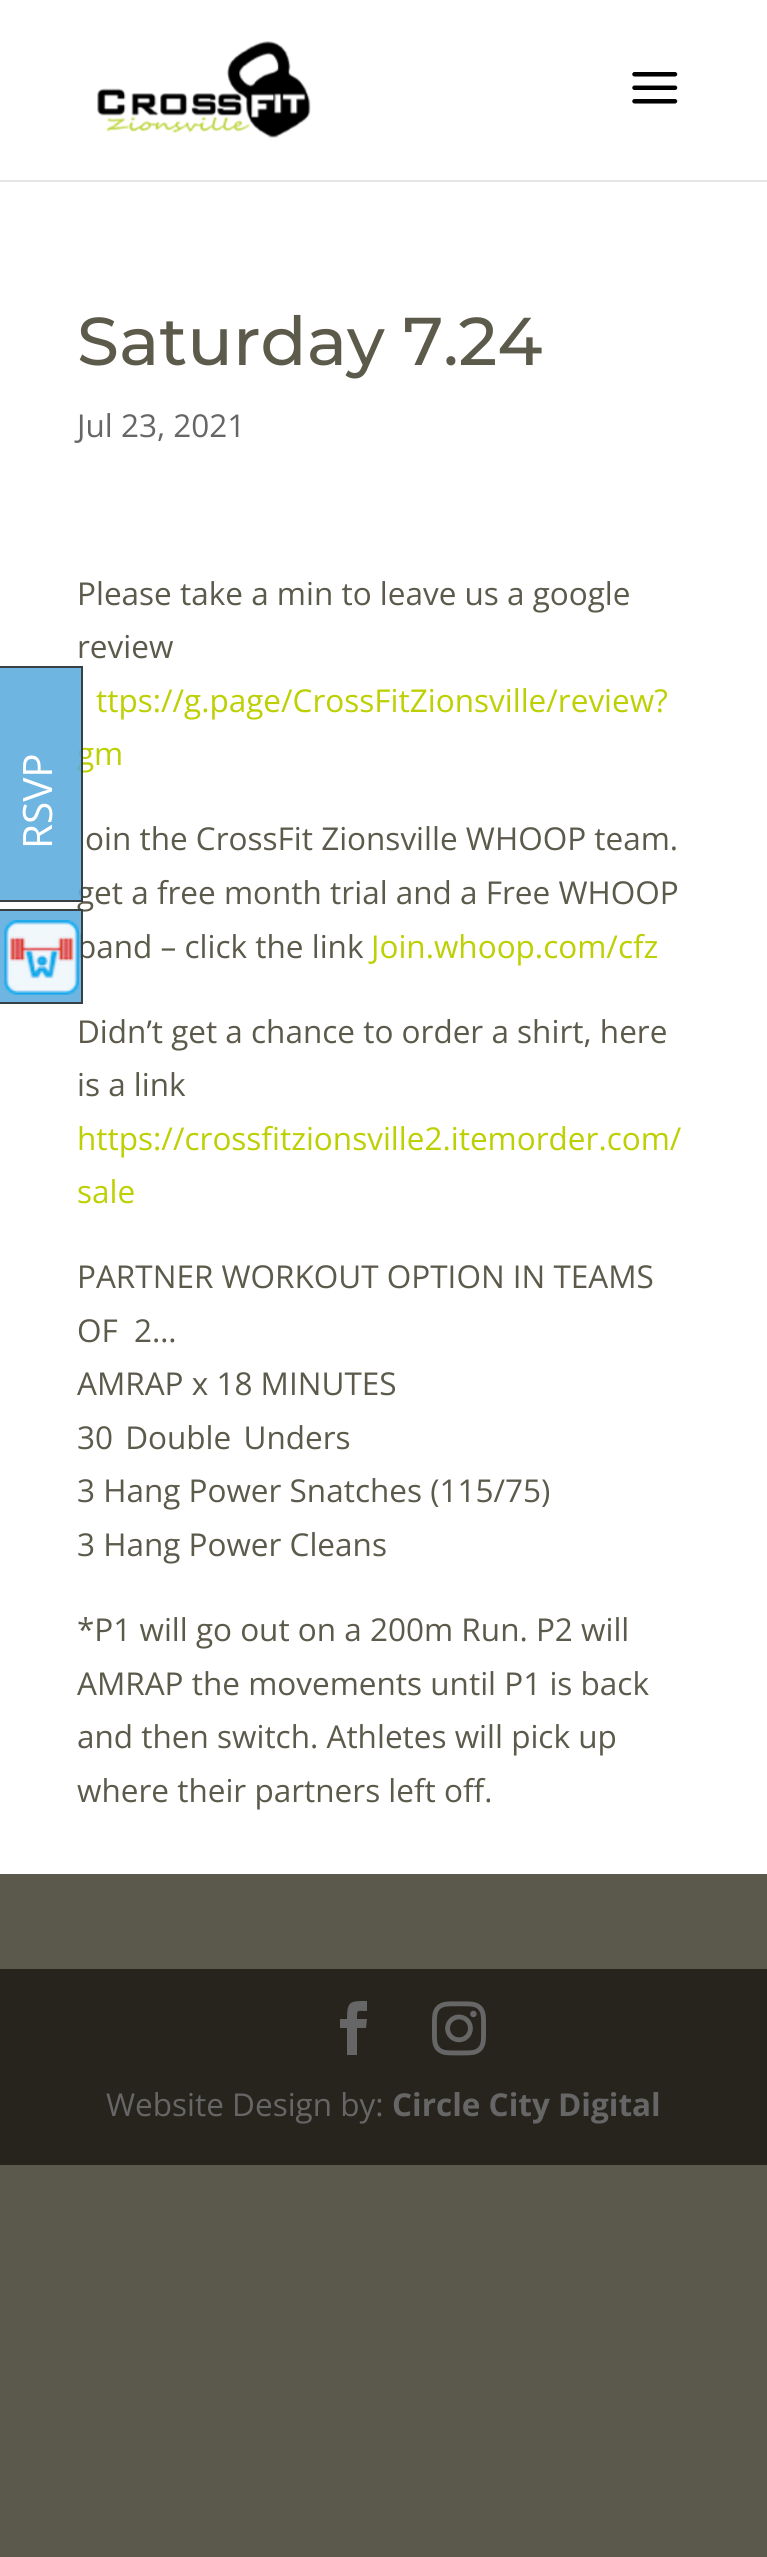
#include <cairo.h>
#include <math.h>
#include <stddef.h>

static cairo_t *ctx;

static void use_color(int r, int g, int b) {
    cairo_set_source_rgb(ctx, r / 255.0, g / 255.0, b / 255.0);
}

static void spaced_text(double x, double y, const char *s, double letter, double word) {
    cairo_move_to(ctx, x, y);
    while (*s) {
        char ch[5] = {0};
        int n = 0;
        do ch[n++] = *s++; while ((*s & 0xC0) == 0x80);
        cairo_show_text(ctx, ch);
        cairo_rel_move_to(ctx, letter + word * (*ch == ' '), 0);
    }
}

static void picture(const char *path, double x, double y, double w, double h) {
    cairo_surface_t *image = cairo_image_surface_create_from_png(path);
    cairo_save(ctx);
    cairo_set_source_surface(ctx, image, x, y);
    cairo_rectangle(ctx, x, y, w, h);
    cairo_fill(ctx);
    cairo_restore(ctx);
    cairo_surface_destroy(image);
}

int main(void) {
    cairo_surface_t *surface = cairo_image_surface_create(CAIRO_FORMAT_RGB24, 767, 2557);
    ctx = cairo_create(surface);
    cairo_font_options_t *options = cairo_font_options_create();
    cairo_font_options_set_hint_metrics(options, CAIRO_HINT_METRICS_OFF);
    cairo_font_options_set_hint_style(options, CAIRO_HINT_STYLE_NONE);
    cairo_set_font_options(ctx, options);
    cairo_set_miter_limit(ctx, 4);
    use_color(91, 89, 76);
    cairo_paint(ctx);
    use_color(255, 255, 255);
    cairo_rectangle(ctx, 0, 182, 767, 1692);
    cairo_fill(ctx);
    cairo_select_font_face(ctx, "Open Sans", CAIRO_FONT_SLANT_NORMAL, CAIRO_FONT_WEIGHT_NORMAL);
    cairo_set_font_size(ctx, 31.5);
    use_color(188, 208, 3);
    cairo_move_to(ctx, 77, 765);
    cairo_show_text(ctx, "gm");
    use_color(92, 90, 75);
    cairo_move_to(ctx, 77, 904);
    cairo_show_text(ctx, "get a free month trial and a Free WHOOP");
    cairo_set_source_rgba(ctx, 0.369, 0.678, 0.871, 0.9);
    cairo_rectangle(ctx, 0, 666, 83, 236);
    cairo_fill(ctx);
    cairo_rectangle(ctx, -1, 667, 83, 234);
    cairo_set_source_rgba(ctx, 0.2, 0.2, 0.2, 0.9);
    cairo_stroke(ctx);
    cairo_set_font_size(ctx, 40.5);
    use_color(255, 255, 255);
    cairo_save(ctx);
    cairo_translate(ctx, 52, 849);
    cairo_rotate(ctx, -90 * M_PI / 180);
    cairo_move_to(ctx, 0, 0);
    cairo_show_text(ctx, "RSVP");
    cairo_restore(ctx);
    use_color(230, 230, 230);
    cairo_rectangle(ctx, 0, 180, 767, 2);
    cairo_fill(ctx);
    use_color(255, 255, 255);
    cairo_rectangle(ctx, 0, 0, 767, 180);
    cairo_fill(ctx);
    picture("img1.png", 97, 41, 214, 97);
    picture("img2.png", 632, 72, 46, 32);
    cairo_select_font_face(ctx, "Montserrat Medium", CAIRO_FONT_SLANT_NORMAL, CAIRO_FONT_WEIGHT_NORMAL);
    cairo_set_font_size(ctx, 67.5);
    use_color(92, 90, 75);
    cairo_move_to(ctx, 77, 365);
    cairo_show_text(ctx, "Saturday 7.24");
    cairo_select_font_face(ctx, "Open Sans", CAIRO_FONT_SLANT_NORMAL, CAIRO_FONT_WEIGHT_NORMAL);
    cairo_set_font_size(ctx, 31.5);
    use_color(102, 102, 102);
    cairo_move_to(ctx, 77, 437);
    cairo_show_text(ctx, "Jul 23, 2021");
    use_color(92, 90, 75);
    cairo_move_to(ctx, 77, 605);
    cairo_show_text(ctx, "Please take a min to leave us a google");
    cairo_move_to(ctx, 77, 658);
    cairo_show_text(ctx, "review");
    use_color(188, 208, 3);
    cairo_move_to(ctx, 96, 712);
    cairo_show_text(ctx, "ttps://g.page/CrossFitZionsville/review?");
    use_color(92, 90, 75);
    cairo_move_to(ctx, 85, 850);
    cairo_show_text(ctx, "oin the CrossFit Zionsville WHOOP team.");
    cairo_move_to(ctx, 77, 958);
    cairo_show_text(ctx, "band – click the link");
    use_color(188, 208, 3);
    cairo_move_to(ctx, 371, 958);
    cairo_show_text(ctx, "Join.whoop.com/cfz");
    use_color(92, 90, 75);
    cairo_move_to(ctx, 77, 1043);
    cairo_show_text(ctx, "Didn’t get a chance to order a shirt, here");
    cairo_move_to(ctx, 77, 1096);
    cairo_show_text(ctx, "is a link");
    use_color(188, 208, 3);
    cairo_move_to(ctx, 77, 1150);
    cairo_show_text(ctx, "https://crossfitzionsville2.itemorder.com/");
    cairo_move_to(ctx, 77, 1203);
    cairo_show_text(ctx, "sale");
    use_color(92, 90, 75);
    cairo_move_to(ctx, 77, 1288);
    cairo_show_text(ctx, "PARTNER WORKOUT OPTION IN TEAMS");
    spaced_text(77, 1342, "OF 2…", 0, 8);
    cairo_move_to(ctx, 77, 1395);
    cairo_show_text(ctx, "AMRAP x 18 MINUTES");
    spaced_text(77, 1449, "30 Double Unders", 0, 4);
    cairo_move_to(ctx, 77, 1502);
    cairo_show_text(ctx, "3 Hang Power Snatches (115/75)");
    cairo_move_to(ctx, 77, 1556);
    cairo_show_text(ctx, "3 Hang Power Cleans");
    cairo_move_to(ctx, 77, 1641);
    cairo_show_text(ctx, "*P1 will go out on a 200m Run. P2 will");
    cairo_move_to(ctx, 77, 1695);
    cairo_show_text(ctx, "AMRAP the movements until P1 is back");
    cairo_move_to(ctx, 77, 1748);
    cairo_show_text(ctx, "and then switch. Athletes will pick up");
    cairo_move_to(ctx, 77, 1802);
    cairo_show_text(ctx, "where their partners left off.");
    use_color(38, 36, 29);
    cairo_rectangle(ctx, 0, 1969, 767, 196);
    cairo_fill(ctx);
    use_color(102, 102, 102);
    cairo_new_path(ctx);
    cairo_move_to(ctx, 347, 2055);
    cairo_line_to(ctx, 357, 2055);
    cairo_line_to(ctx, 357, 2028);
    cairo_line_to(ctx, 366, 2028);
    cairo_line_to(ctx, 367, 2019);
    cairo_line_to(ctx, 357, 2019);
    cairo_curve_to(ctx, 357, 2009, 357, 2011, 367, 2011);
    cairo_line_to(ctx, 367, 2001);
    cairo_curve_to(ctx, 350, 2001, 347, 2001, 347, 2019);
    cairo_line_to(ctx, 340, 2019);
    cairo_line_to(ctx, 340, 2028);
    cairo_line_to(ctx, 347, 2028);
    cairo_close_path(ctx);
    cairo_fill(ctx);
    picture("img3.png", 432, 2001, 54, 55);
    cairo_move_to(ctx, 106, 2116);
    cairo_show_text(ctx, "Website Design by:");
    cairo_select_font_face(ctx, "Open Sans", CAIRO_FONT_SLANT_NORMAL, CAIRO_FONT_WEIGHT_BOLD);
    cairo_move_to(ctx, 392, 2116);
    cairo_show_text(ctx, "Circle City Digital");
    cairo_set_source_rgba(ctx, 0.369, 0.678, 0.871, 0.9);
    cairo_rectangle(ctx, 0, 909, 83, 95);
    cairo_fill(ctx);
    picture("img4.png", 3, 920, 76, 75);
    cairo_rectangle(ctx, -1, 910, 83, 93);
    cairo_set_source_rgba(ctx, 0.2, 0.2, 0.2, 0.9);
    cairo_stroke(ctx);
    cairo_surface_write_to_png(surface, "result.png");
    cairo_font_options_destroy(options);
    cairo_destroy(ctx);
    cairo_surface_destroy(surface);
    return 0;
}
